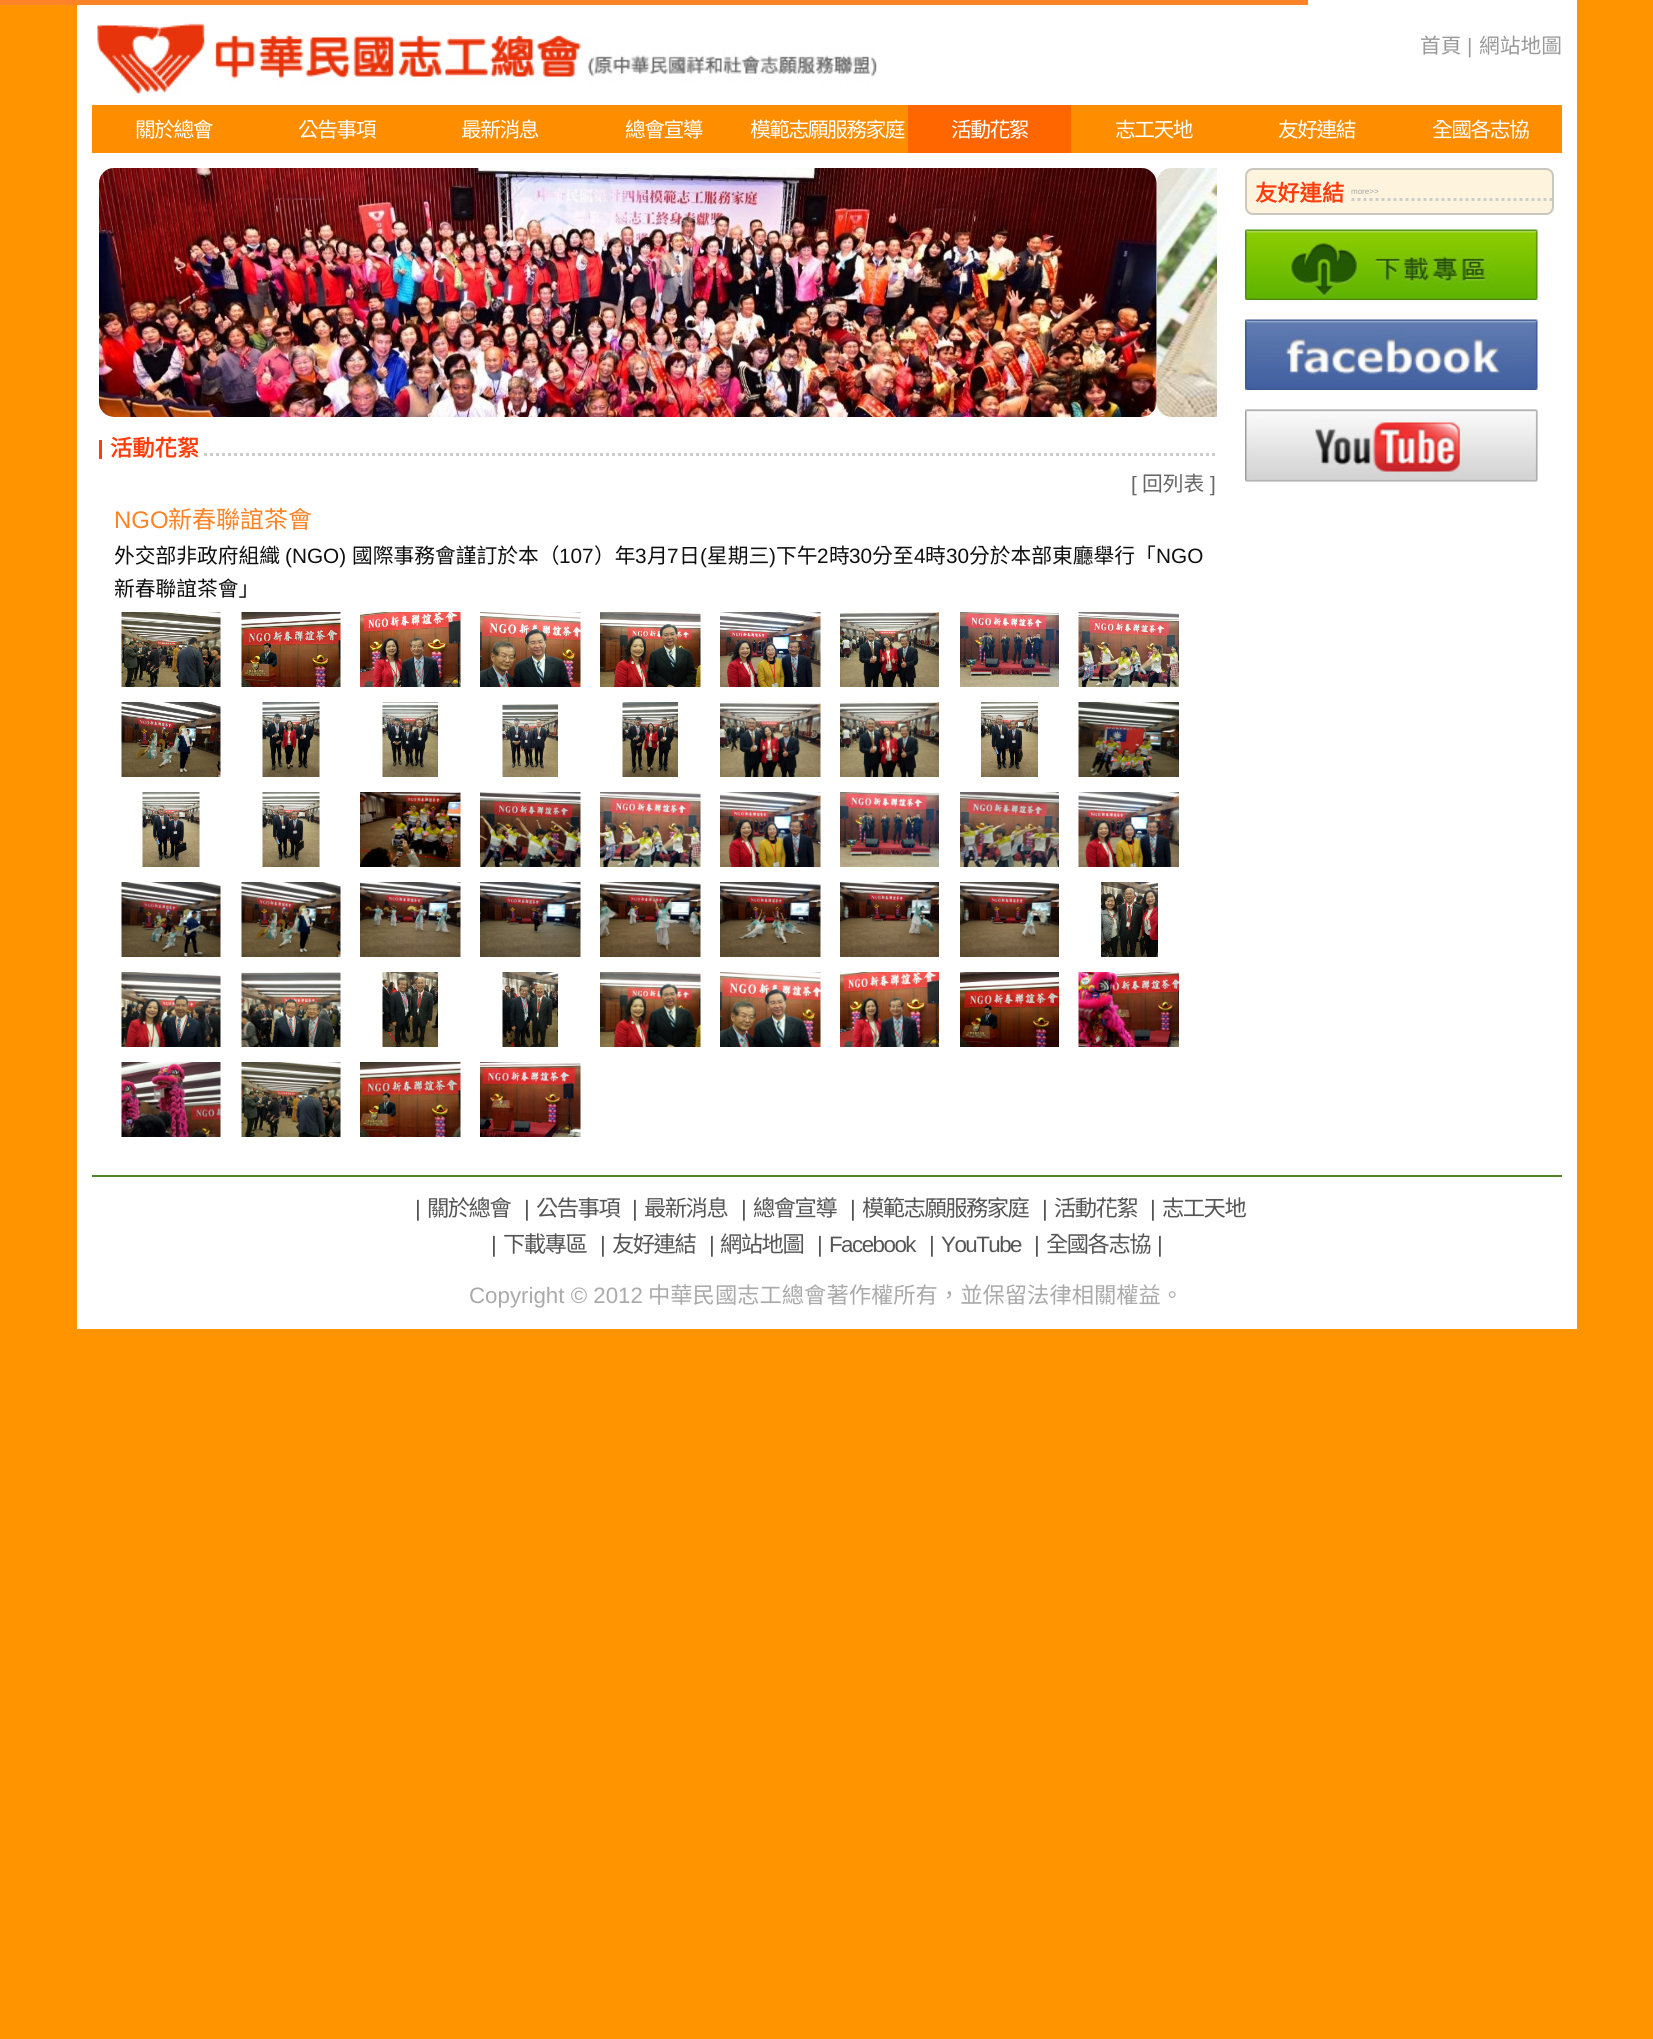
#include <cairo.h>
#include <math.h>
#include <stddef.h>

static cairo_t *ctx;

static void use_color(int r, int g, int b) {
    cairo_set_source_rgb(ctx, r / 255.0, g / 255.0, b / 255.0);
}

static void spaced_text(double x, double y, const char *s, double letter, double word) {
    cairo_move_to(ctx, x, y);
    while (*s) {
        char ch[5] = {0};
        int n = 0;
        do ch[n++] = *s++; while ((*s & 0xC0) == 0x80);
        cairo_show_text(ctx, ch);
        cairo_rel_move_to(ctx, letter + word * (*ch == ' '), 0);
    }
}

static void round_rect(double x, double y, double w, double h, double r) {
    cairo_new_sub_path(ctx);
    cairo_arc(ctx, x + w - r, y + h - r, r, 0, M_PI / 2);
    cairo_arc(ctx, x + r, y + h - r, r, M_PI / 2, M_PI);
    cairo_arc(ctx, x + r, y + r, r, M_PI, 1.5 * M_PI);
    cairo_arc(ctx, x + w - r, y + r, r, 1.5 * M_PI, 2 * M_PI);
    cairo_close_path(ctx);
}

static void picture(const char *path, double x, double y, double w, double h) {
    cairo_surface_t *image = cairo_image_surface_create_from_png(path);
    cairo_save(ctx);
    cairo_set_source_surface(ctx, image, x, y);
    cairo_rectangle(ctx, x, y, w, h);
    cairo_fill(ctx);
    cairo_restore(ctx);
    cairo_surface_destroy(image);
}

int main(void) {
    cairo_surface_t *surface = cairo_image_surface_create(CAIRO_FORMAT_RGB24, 1653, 2039);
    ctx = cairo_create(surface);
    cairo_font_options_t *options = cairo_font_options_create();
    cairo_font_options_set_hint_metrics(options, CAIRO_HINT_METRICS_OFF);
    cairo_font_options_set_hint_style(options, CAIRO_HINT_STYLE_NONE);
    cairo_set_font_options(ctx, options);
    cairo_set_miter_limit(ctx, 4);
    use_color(255, 148, 0);
    cairo_paint(ctx);
    use_color(255, 255, 255);
    cairo_rectangle(ctx, 77, 0, 1500, 1329);
    cairo_fill(ctx);
    use_color(252, 131, 38);
    cairo_rectangle(ctx, 0, 0, 1308, 5);
    cairo_fill(ctx);
    picture("img1.png", 97, 23, 780, 72);
    cairo_select_font_face(ctx, "Noto Sans CJK TC", CAIRO_FONT_SLANT_NORMAL, CAIRO_FONT_WEIGHT_NORMAL);
    cairo_set_font_size(ctx, 20.75);
    use_color(153, 153, 153);
    cairo_move_to(ctx, 1420, 53);
    cairo_show_text(ctx, "首頁");
    cairo_select_font_face(ctx, "Liberation Sans", CAIRO_FONT_SLANT_NORMAL, CAIRO_FONT_WEIGHT_NORMAL);
    cairo_move_to(ctx, 1467, 53);
    cairo_show_text(ctx, "|");
    cairo_select_font_face(ctx, "Noto Sans CJK TC", CAIRO_FONT_SLANT_NORMAL, CAIRO_FONT_WEIGHT_NORMAL);
    cairo_move_to(ctx, 1479, 53);
    cairo_show_text(ctx, "網站地圖");
    use_color(255, 141, 0);
    cairo_rectangle(ctx, 92, 105, 816, 48);
    cairo_fill(ctx);
    use_color(255, 255, 255);
    spaced_text(135, 137, "關於總會", -1.5, 0);
    spaced_text(298, 137, "公告事項", -1.5, 0);
    spaced_text(461, 137, "最新消息", -1.5, 0);
    spaced_text(625, 137, "總會宣導", -1.5, 0);
    spaced_text(750, 137, "模範志願服務家庭", -1.5, 0);
    use_color(255, 102, 0);
    cairo_rectangle(ctx, 908, 105, 163, 48);
    cairo_fill(ctx);
    use_color(255, 255, 255);
    spaced_text(951, 137, "活動花絮", -1.5, 0);
    use_color(255, 141, 0);
    cairo_rectangle(ctx, 1071, 105, 491, 48);
    cairo_fill(ctx);
    use_color(255, 255, 255);
    spaced_text(1115, 137, "志工天地", -1.5, 0);
    spaced_text(1278, 137, "友好連結", -1.5, 0);
    spaced_text(1432, 137, "全國各志協", -1.5, 0);
    use_color(254, 244, 221);
    round_rect(1246, 169, 307, 45, 7);
    cairo_fill_preserve(ctx);
    use_color(202, 199, 190);
    cairo_stroke(ctx);
    cairo_select_font_face(ctx, "Noto Sans CJK TC", CAIRO_FONT_SLANT_NORMAL, CAIRO_FONT_WEIGHT_BOLD);
    cairo_set_font_size(ctx, 22.3);
    use_color(255, 60, 12);
    cairo_move_to(ctx, 1255, 201);
    cairo_show_text(ctx, "友好連結");
    cairo_select_font_face(ctx, "Liberation Sans", CAIRO_FONT_SLANT_NORMAL, CAIRO_FONT_WEIGHT_NORMAL);
    cairo_set_font_size(ctx, 8);
    use_color(163, 163, 163);
    cairo_move_to(ctx, 1351, 194);
    cairo_show_text(ctx, "more>>");
    cairo_new_path(ctx);
    cairo_move_to(ctx, 1351.5, 199.5);
    cairo_line_to(ctx, 1552.5, 199.5);
    use_color(204, 204, 204);
    cairo_set_line_width(ctx, 3);
    cairo_set_dash(ctx, (double[]){3, 3}, 2, 0);
    cairo_stroke(ctx);
    picture("img2.png", 1245, 229, 293, 71);
    picture("img3.png", 1245, 319, 293, 71);
    picture("img4.png", 1245, 409, 293, 73);
    picture("img5.png", 99, 168, 1058, 249);
    picture("img6.png", 1157, 168, 60, 249);
    use_color(255, 60, 12);
    cairo_rectangle(ctx, 99, 440, 3, 19);
    cairo_fill(ctx);
    cairo_select_font_face(ctx, "Noto Sans CJK TC", CAIRO_FONT_SLANT_NORMAL, CAIRO_FONT_WEIGHT_BOLD);
    cairo_set_font_size(ctx, 22.3);
    cairo_move_to(ctx, 110, 456);
    cairo_show_text(ctx, "活動花絮");
    cairo_new_path(ctx);
    cairo_move_to(ctx, 204, 454.5);
    cairo_line_to(ctx, 1216.5, 454.5);
    use_color(204, 204, 204);
    cairo_stroke(ctx);
    cairo_select_font_face(ctx, "Liberation Sans", CAIRO_FONT_SLANT_NORMAL, CAIRO_FONT_WEIGHT_NORMAL);
    cairo_set_font_size(ctx, 20.75);
    use_color(102, 102, 102);
    cairo_move_to(ctx, 1131, 491);
    cairo_show_text(ctx, "[");
    cairo_select_font_face(ctx, "Noto Sans CJK TC", CAIRO_FONT_SLANT_NORMAL, CAIRO_FONT_WEIGHT_NORMAL);
    cairo_move_to(ctx, 1142, 491);
    cairo_show_text(ctx, "回列表");
    cairo_select_font_face(ctx, "Liberation Sans", CAIRO_FONT_SLANT_NORMAL, CAIRO_FONT_WEIGHT_NORMAL);
    cairo_move_to(ctx, 1210, 491);
    cairo_show_text(ctx, "]");
    cairo_set_font_size(ctx, 24);
    use_color(252, 131, 38);
    cairo_move_to(ctx, 114, 528);
    cairo_show_text(ctx, "NGO");
    cairo_select_font_face(ctx, "Noto Sans CJK TC", CAIRO_FONT_SLANT_NORMAL, CAIRO_FONT_WEIGHT_NORMAL);
    cairo_move_to(ctx, 168, 528);
    cairo_show_text(ctx, "新春聯誼茶會");
    cairo_set_font_size(ctx, 20.75);
    use_color(15, 15, 15);
    cairo_move_to(ctx, 114, 563);
    cairo_show_text(ctx, "外交部非政府組織");
    cairo_select_font_face(ctx, "Liberation Sans", CAIRO_FONT_SLANT_NORMAL, CAIRO_FONT_WEIGHT_NORMAL);
    cairo_move_to(ctx, 285, 563);
    cairo_show_text(ctx, "(NGO)");
    cairo_select_font_face(ctx, "Noto Sans CJK TC", CAIRO_FONT_SLANT_NORMAL, CAIRO_FONT_WEIGHT_NORMAL);
    cairo_move_to(ctx, 352, 563);
    cairo_show_text(ctx, "國際事務會謹訂於本（");
    cairo_select_font_face(ctx, "Liberation Sans", CAIRO_FONT_SLANT_NORMAL, CAIRO_FONT_WEIGHT_NORMAL);
    cairo_move_to(ctx, 559, 563);
    cairo_show_text(ctx, "107");
    cairo_select_font_face(ctx, "Noto Sans CJK TC", CAIRO_FONT_SLANT_NORMAL, CAIRO_FONT_WEIGHT_NORMAL);
    cairo_move_to(ctx, 594, 563);
    cairo_show_text(ctx, "）年");
    cairo_select_font_face(ctx, "Liberation Sans", CAIRO_FONT_SLANT_NORMAL, CAIRO_FONT_WEIGHT_NORMAL);
    cairo_move_to(ctx, 635, 563);
    cairo_show_text(ctx, "3");
    cairo_select_font_face(ctx, "Noto Sans CJK TC", CAIRO_FONT_SLANT_NORMAL, CAIRO_FONT_WEIGHT_NORMAL);
    cairo_move_to(ctx, 647, 563);
    cairo_show_text(ctx, "月");
    cairo_select_font_face(ctx, "Liberation Sans", CAIRO_FONT_SLANT_NORMAL, CAIRO_FONT_WEIGHT_NORMAL);
    cairo_move_to(ctx, 667, 563);
    cairo_show_text(ctx, "7");
    cairo_select_font_face(ctx, "Noto Sans CJK TC", CAIRO_FONT_SLANT_NORMAL, CAIRO_FONT_WEIGHT_NORMAL);
    cairo_move_to(ctx, 679, 563);
    cairo_show_text(ctx, "日");
    cairo_select_font_face(ctx, "Liberation Sans", CAIRO_FONT_SLANT_NORMAL, CAIRO_FONT_WEIGHT_NORMAL);
    cairo_move_to(ctx, 700, 563);
    cairo_show_text(ctx, "(");
    cairo_select_font_face(ctx, "Noto Sans CJK TC", CAIRO_FONT_SLANT_NORMAL, CAIRO_FONT_WEIGHT_NORMAL);
    cairo_move_to(ctx, 707, 563);
    cairo_show_text(ctx, "星期三");
    cairo_select_font_face(ctx, "Liberation Sans", CAIRO_FONT_SLANT_NORMAL, CAIRO_FONT_WEIGHT_NORMAL);
    cairo_move_to(ctx, 769, 563);
    cairo_show_text(ctx, ")");
    cairo_select_font_face(ctx, "Noto Sans CJK TC", CAIRO_FONT_SLANT_NORMAL, CAIRO_FONT_WEIGHT_NORMAL);
    cairo_move_to(ctx, 776, 563);
    cairo_show_text(ctx, "下午");
    cairo_select_font_face(ctx, "Liberation Sans", CAIRO_FONT_SLANT_NORMAL, CAIRO_FONT_WEIGHT_NORMAL);
    cairo_move_to(ctx, 817, 563);
    cairo_show_text(ctx, "2");
    cairo_select_font_face(ctx, "Noto Sans CJK TC", CAIRO_FONT_SLANT_NORMAL, CAIRO_FONT_WEIGHT_NORMAL);
    cairo_move_to(ctx, 829, 563);
    cairo_show_text(ctx, "時");
    cairo_select_font_face(ctx, "Liberation Sans", CAIRO_FONT_SLANT_NORMAL, CAIRO_FONT_WEIGHT_NORMAL);
    cairo_move_to(ctx, 849, 563);
    cairo_show_text(ctx, "30");
    cairo_select_font_face(ctx, "Noto Sans CJK TC", CAIRO_FONT_SLANT_NORMAL, CAIRO_FONT_WEIGHT_NORMAL);
    cairo_move_to(ctx, 872, 563);
    cairo_show_text(ctx, "分至");
    cairo_select_font_face(ctx, "Liberation Sans", CAIRO_FONT_SLANT_NORMAL, CAIRO_FONT_WEIGHT_NORMAL);
    cairo_move_to(ctx, 914, 563);
    cairo_show_text(ctx, "4");
    cairo_select_font_face(ctx, "Noto Sans CJK TC", CAIRO_FONT_SLANT_NORMAL, CAIRO_FONT_WEIGHT_NORMAL);
    cairo_move_to(ctx, 925, 563);
    cairo_show_text(ctx, "時");
    cairo_select_font_face(ctx, "Liberation Sans", CAIRO_FONT_SLANT_NORMAL, CAIRO_FONT_WEIGHT_NORMAL);
    cairo_move_to(ctx, 946, 563);
    cairo_show_text(ctx, "30");
    cairo_select_font_face(ctx, "Noto Sans CJK TC", CAIRO_FONT_SLANT_NORMAL, CAIRO_FONT_WEIGHT_NORMAL);
    cairo_move_to(ctx, 969, 563);
    cairo_show_text(ctx, "分於本部東廳舉行「");
    cairo_select_font_face(ctx, "Liberation Sans", CAIRO_FONT_SLANT_NORMAL, CAIRO_FONT_WEIGHT_NORMAL);
    cairo_move_to(ctx, 1156, 563);
    cairo_show_text(ctx, "NGO");
    cairo_select_font_face(ctx, "Noto Sans CJK TC", CAIRO_FONT_SLANT_NORMAL, CAIRO_FONT_WEIGHT_NORMAL);
    cairo_move_to(ctx, 114, 596);
    cairo_show_text(ctx, "新春聯誼茶會」");
    picture("img7.png", 121, 612, 100, 75);
    picture("img8.png", 241, 612, 100, 75);
    picture("img9.png", 360, 612, 101, 75);
    picture("img10.png", 480, 612, 101, 75);
    picture("img11.png", 600, 612, 101, 75);
    picture("img12.png", 720, 612, 101, 75);
    picture("img13.png", 840, 612, 99, 75);
    picture("img14.png", 960, 612, 99, 75);
    picture("img15.png", 1078, 612, 101, 75);
    picture("img16.png", 121, 702, 100, 75);
    picture("img17.png", 262, 702, 58, 75);
    picture("img18.png", 382, 702, 56, 75);
    picture("img19.png", 502, 704, 56, 73);
    picture("img20.png", 622, 702, 56, 75);
    picture("img21.png", 720, 702, 101, 75);
    picture("img22.png", 840, 702, 99, 75);
    picture("img23.png", 981, 702, 57, 75);
    picture("img24.png", 1078, 702, 101, 75);
    picture("img25.png", 142, 792, 58, 75);
    picture("img26.png", 262, 792, 58, 75);
    picture("img27.png", 360, 792, 101, 75);
    picture("img28.png", 480, 792, 101, 75);
    picture("img29.png", 600, 792, 101, 75);
    picture("img30.png", 720, 792, 101, 75);
    picture("img31.png", 840, 792, 99, 75);
    picture("img32.png", 960, 792, 99, 75);
    picture("img33.png", 1078, 792, 101, 75);
    picture("img34.png", 121, 882, 100, 75);
    picture("img35.png", 241, 882, 100, 75);
    picture("img36.png", 360, 882, 101, 75);
    picture("img37.png", 480, 882, 101, 75);
    picture("img38.png", 600, 882, 101, 75);
    picture("img39.png", 720, 882, 101, 75);
    picture("img40.png", 840, 882, 99, 75);
    picture("img41.png", 960, 882, 99, 75);
    picture("img42.png", 1101, 882, 57, 75);
    picture("img43.png", 121, 972, 100, 75);
    picture("img44.png", 241, 972, 100, 75);
    picture("img45.png", 382, 972, 56, 75);
    picture("img46.png", 502, 972, 56, 75);
    picture("img47.png", 600, 972, 101, 75);
    picture("img48.png", 720, 972, 101, 75);
    picture("img49.png", 840, 972, 99, 75);
    picture("img50.png", 960, 972, 99, 75);
    picture("img51.png", 1078, 972, 101, 75);
    picture("img52.png", 121, 1062, 100, 75);
    picture("img53.png", 241, 1062, 100, 75);
    picture("img54.png", 360, 1062, 101, 75);
    picture("img55.png", 480, 1062, 101, 75);
    use_color(79, 131, 37);
    cairo_rectangle(ctx, 92, 1175, 1470, 2);
    cairo_fill(ctx);
    cairo_select_font_face(ctx, "Liberation Sans", CAIRO_FONT_SLANT_NORMAL, CAIRO_FONT_WEIGHT_NORMAL);
    cairo_set_font_size(ctx, 22.3);
    use_color(85, 85, 85);
    spaced_text(415, 1216, "|", -1.5, 0);
    cairo_select_font_face(ctx, "Noto Sans CJK TC", CAIRO_FONT_SLANT_NORMAL, CAIRO_FONT_WEIGHT_NORMAL);
    spaced_text(427, 1216, "關於總會", -1.5, 0);
    cairo_select_font_face(ctx, "Liberation Sans", CAIRO_FONT_SLANT_NORMAL, CAIRO_FONT_WEIGHT_NORMAL);
    spaced_text(524, 1216, "|", -1.5, 0);
    cairo_select_font_face(ctx, "Noto Sans CJK TC", CAIRO_FONT_SLANT_NORMAL, CAIRO_FONT_WEIGHT_NORMAL);
    spaced_text(536, 1216, "公告事項", -1.5, 0);
    cairo_select_font_face(ctx, "Liberation Sans", CAIRO_FONT_SLANT_NORMAL, CAIRO_FONT_WEIGHT_NORMAL);
    spaced_text(632, 1216, "|", -1.5, 0);
    cairo_select_font_face(ctx, "Noto Sans CJK TC", CAIRO_FONT_SLANT_NORMAL, CAIRO_FONT_WEIGHT_NORMAL);
    spaced_text(644, 1216, "最新消息", -1.5, 0);
    cairo_select_font_face(ctx, "Liberation Sans", CAIRO_FONT_SLANT_NORMAL, CAIRO_FONT_WEIGHT_NORMAL);
    spaced_text(741, 1216, "|", -1.5, 0);
    cairo_select_font_face(ctx, "Noto Sans CJK TC", CAIRO_FONT_SLANT_NORMAL, CAIRO_FONT_WEIGHT_NORMAL);
    spaced_text(753, 1216, "總會宣導", -1.5, 0);
    cairo_select_font_face(ctx, "Liberation Sans", CAIRO_FONT_SLANT_NORMAL, CAIRO_FONT_WEIGHT_NORMAL);
    spaced_text(850, 1216, "|", -1.5, 0);
    cairo_select_font_face(ctx, "Noto Sans CJK TC", CAIRO_FONT_SLANT_NORMAL, CAIRO_FONT_WEIGHT_NORMAL);
    spaced_text(862, 1216, "模範志願服務家庭", -1.5, 0);
    cairo_select_font_face(ctx, "Liberation Sans", CAIRO_FONT_SLANT_NORMAL, CAIRO_FONT_WEIGHT_NORMAL);
    spaced_text(1042, 1216, "|", -1.5, 0);
    cairo_select_font_face(ctx, "Noto Sans CJK TC", CAIRO_FONT_SLANT_NORMAL, CAIRO_FONT_WEIGHT_NORMAL);
    spaced_text(1054, 1216, "活動花絮", -1.5, 0);
    cairo_select_font_face(ctx, "Liberation Sans", CAIRO_FONT_SLANT_NORMAL, CAIRO_FONT_WEIGHT_NORMAL);
    spaced_text(1150, 1216, "|", -1.5, 0);
    cairo_select_font_face(ctx, "Noto Sans CJK TC", CAIRO_FONT_SLANT_NORMAL, CAIRO_FONT_WEIGHT_NORMAL);
    spaced_text(1162, 1216, "志工天地", -1.5, 0);
    cairo_select_font_face(ctx, "Liberation Sans", CAIRO_FONT_SLANT_NORMAL, CAIRO_FONT_WEIGHT_NORMAL);
    spaced_text(491, 1252, "|", -1.5, 0);
    cairo_select_font_face(ctx, "Noto Sans CJK TC", CAIRO_FONT_SLANT_NORMAL, CAIRO_FONT_WEIGHT_NORMAL);
    spaced_text(503, 1252, "下載專區", -1.5, 0);
    cairo_select_font_face(ctx, "Liberation Sans", CAIRO_FONT_SLANT_NORMAL, CAIRO_FONT_WEIGHT_NORMAL);
    spaced_text(600, 1252, "|", -1.5, 0);
    cairo_select_font_face(ctx, "Noto Sans CJK TC", CAIRO_FONT_SLANT_NORMAL, CAIRO_FONT_WEIGHT_NORMAL);
    spaced_text(612, 1252, "友好連結", -1.5, 0);
    cairo_select_font_face(ctx, "Liberation Sans", CAIRO_FONT_SLANT_NORMAL, CAIRO_FONT_WEIGHT_NORMAL);
    spaced_text(709, 1252, "|", -1.5, 0);
    cairo_select_font_face(ctx, "Noto Sans CJK TC", CAIRO_FONT_SLANT_NORMAL, CAIRO_FONT_WEIGHT_NORMAL);
    spaced_text(720, 1252, "網站地圖", -1.5, 0);
    cairo_select_font_face(ctx, "Liberation Sans", CAIRO_FONT_SLANT_NORMAL, CAIRO_FONT_WEIGHT_NORMAL);
    spaced_text(817, 1252, "|", -1.5, 0);
    spaced_text(829, 1252, "Facebook", -1.5, 0);
    spaced_text(929, 1252, "|", -1.5, 0);
    spaced_text(941, 1252, "YouTube", -1.5, 0);
    spaced_text(1034, 1252, "|", -1.5, 0);
    cairo_select_font_face(ctx, "Noto Sans CJK TC", CAIRO_FONT_SLANT_NORMAL, CAIRO_FONT_WEIGHT_NORMAL);
    spaced_text(1046, 1252, "全國各志協", -1.5, 0);
    cairo_select_font_face(ctx, "Liberation Sans", CAIRO_FONT_SLANT_NORMAL, CAIRO_FONT_WEIGHT_NORMAL);
    spaced_text(1157, 1252, "|", -1.5, 0);
    use_color(170, 170, 170);
    cairo_move_to(ctx, 469, 1303);
    cairo_show_text(ctx, "Copyright © 2012");
    cairo_select_font_face(ctx, "Noto Sans CJK TC", CAIRO_FONT_SLANT_NORMAL, CAIRO_FONT_WEIGHT_NORMAL);
    cairo_move_to(ctx, 648, 1303);
    cairo_show_text(ctx, "中華民國志工總會著作權所有，並保留法律相關權益。");
    cairo_surface_write_to_png(surface, "result.png");
    cairo_font_options_destroy(options);
    cairo_destroy(ctx);
    cairo_surface_destroy(surface);
    return 0;
}
